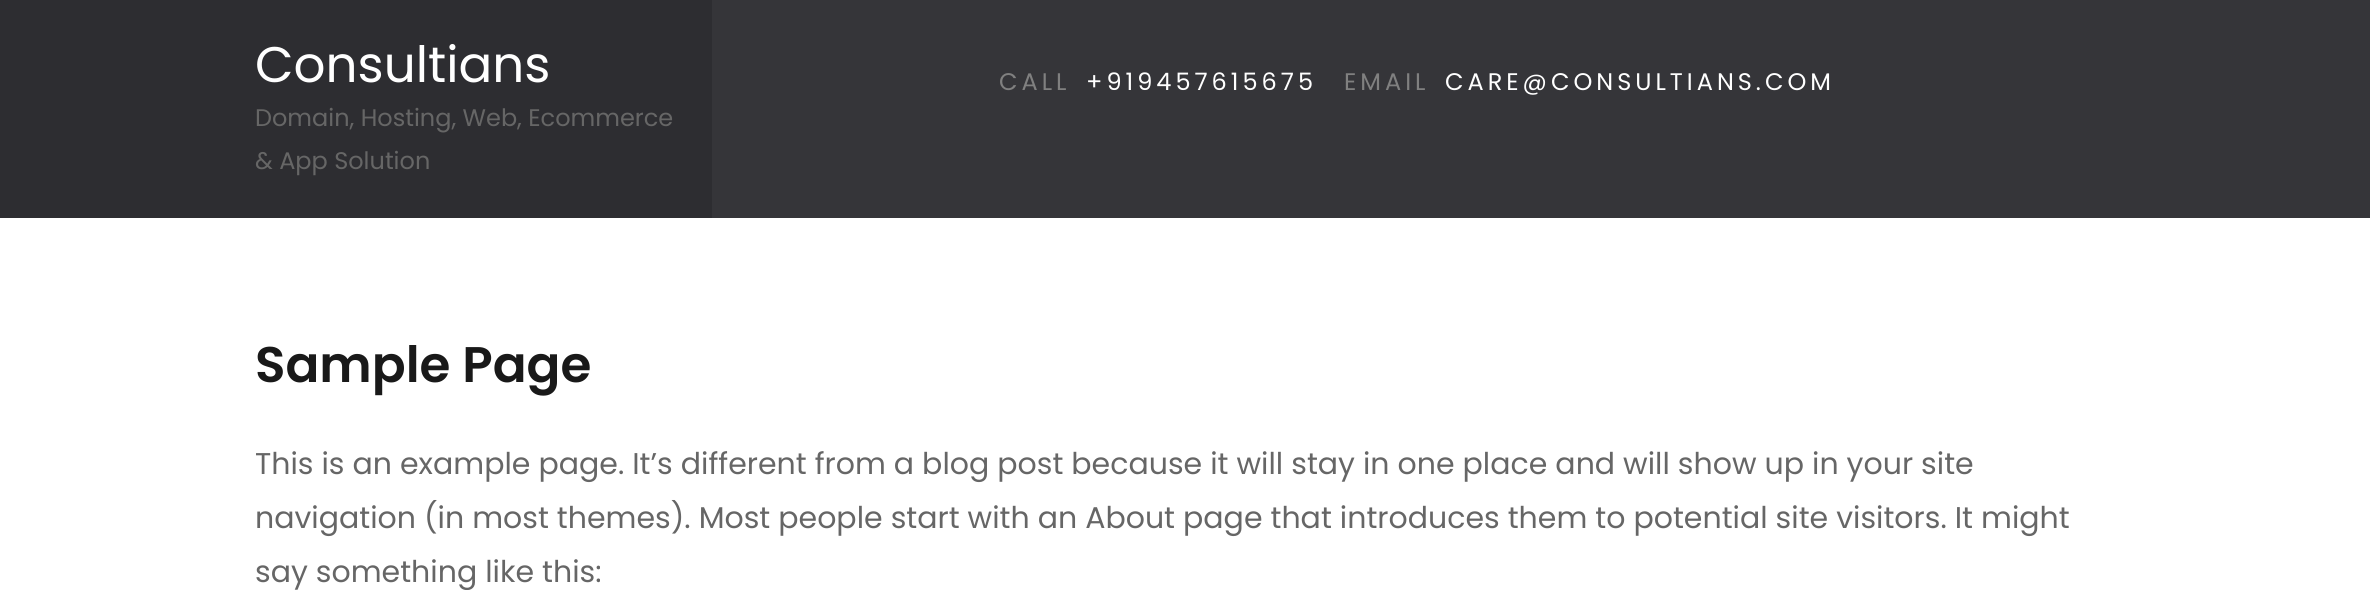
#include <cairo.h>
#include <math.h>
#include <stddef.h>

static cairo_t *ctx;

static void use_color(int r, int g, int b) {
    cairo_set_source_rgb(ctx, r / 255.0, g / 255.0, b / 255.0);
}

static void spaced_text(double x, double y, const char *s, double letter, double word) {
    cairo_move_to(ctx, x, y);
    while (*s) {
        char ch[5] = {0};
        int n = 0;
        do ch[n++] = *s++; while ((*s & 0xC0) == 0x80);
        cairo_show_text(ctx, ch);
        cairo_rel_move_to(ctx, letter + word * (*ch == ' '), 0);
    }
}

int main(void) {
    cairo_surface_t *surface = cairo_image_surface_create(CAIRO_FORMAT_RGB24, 2370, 590);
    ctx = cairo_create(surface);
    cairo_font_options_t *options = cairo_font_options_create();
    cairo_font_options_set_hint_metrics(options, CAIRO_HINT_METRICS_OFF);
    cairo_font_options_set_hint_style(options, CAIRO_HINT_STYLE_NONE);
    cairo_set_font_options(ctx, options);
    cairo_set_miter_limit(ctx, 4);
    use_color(255, 255, 255);
    cairo_paint(ctx);
    use_color(45, 45, 49);
    cairo_rectangle(ctx, 0, 0, 712, 218);
    cairo_fill(ctx);
    use_color(53, 53, 57);
    cairo_rectangle(ctx, 712, 0, 1658, 218);
    cairo_fill(ctx);
    cairo_select_font_face(ctx, "Poppins", CAIRO_FONT_SLANT_NORMAL, CAIRO_FONT_WEIGHT_NORMAL);
    cairo_set_font_size(ctx, 50);
    use_color(255, 255, 255);
    cairo_move_to(ctx, 255, 82);
    cairo_show_text(ctx, "Consultians");
    cairo_set_font_size(ctx, 24);
    use_color(102, 102, 102);
    cairo_move_to(ctx, 255, 126);
    cairo_show_text(ctx, "Domain, Hosting, Web, Ecommerce");
    cairo_move_to(ctx, 255, 169);
    cairo_show_text(ctx, "& App Solution");
    use_color(128, 128, 128);
    spaced_text(999, 90, "CALL", 4, 0);
    use_color(255, 255, 255);
    spaced_text(1086, 90, "+919457615675", 4, 0);
    use_color(128, 128, 128);
    spaced_text(1344, 90, "EMAIL", 4, 0);
    use_color(255, 255, 255);
    spaced_text(1445, 90, "CARE@CONSULTIANS.COM", 4, 0);
    cairo_select_font_face(ctx, "Poppins SemiBold", CAIRO_FONT_SLANT_NORMAL, CAIRO_FONT_WEIGHT_NORMAL);
    cairo_set_font_size(ctx, 50);
    use_color(25, 25, 25);
    cairo_move_to(ctx, 255, 382);
    cairo_show_text(ctx, "Sample Page");
    cairo_select_font_face(ctx, "Poppins", CAIRO_FONT_SLANT_NORMAL, CAIRO_FONT_WEIGHT_NORMAL);
    cairo_set_font_size(ctx, 30);
    use_color(102, 102, 102);
    cairo_move_to(ctx, 255, 474);
    cairo_show_text(ctx, "This is an example page. It’s different from a blog post because it will stay in one place and will show up in your site");
    cairo_move_to(ctx, 255, 528);
    cairo_show_text(ctx, "navigation (in most themes). Most people start with an About page that introduces them to potential site visitors. It might");
    cairo_move_to(ctx, 255, 582);
    cairo_show_text(ctx, "say something like this:");
    cairo_surface_write_to_png(surface, "result.png");
    cairo_font_options_destroy(options);
    cairo_destroy(ctx);
    cairo_surface_destroy(surface);
    return 0;
}
